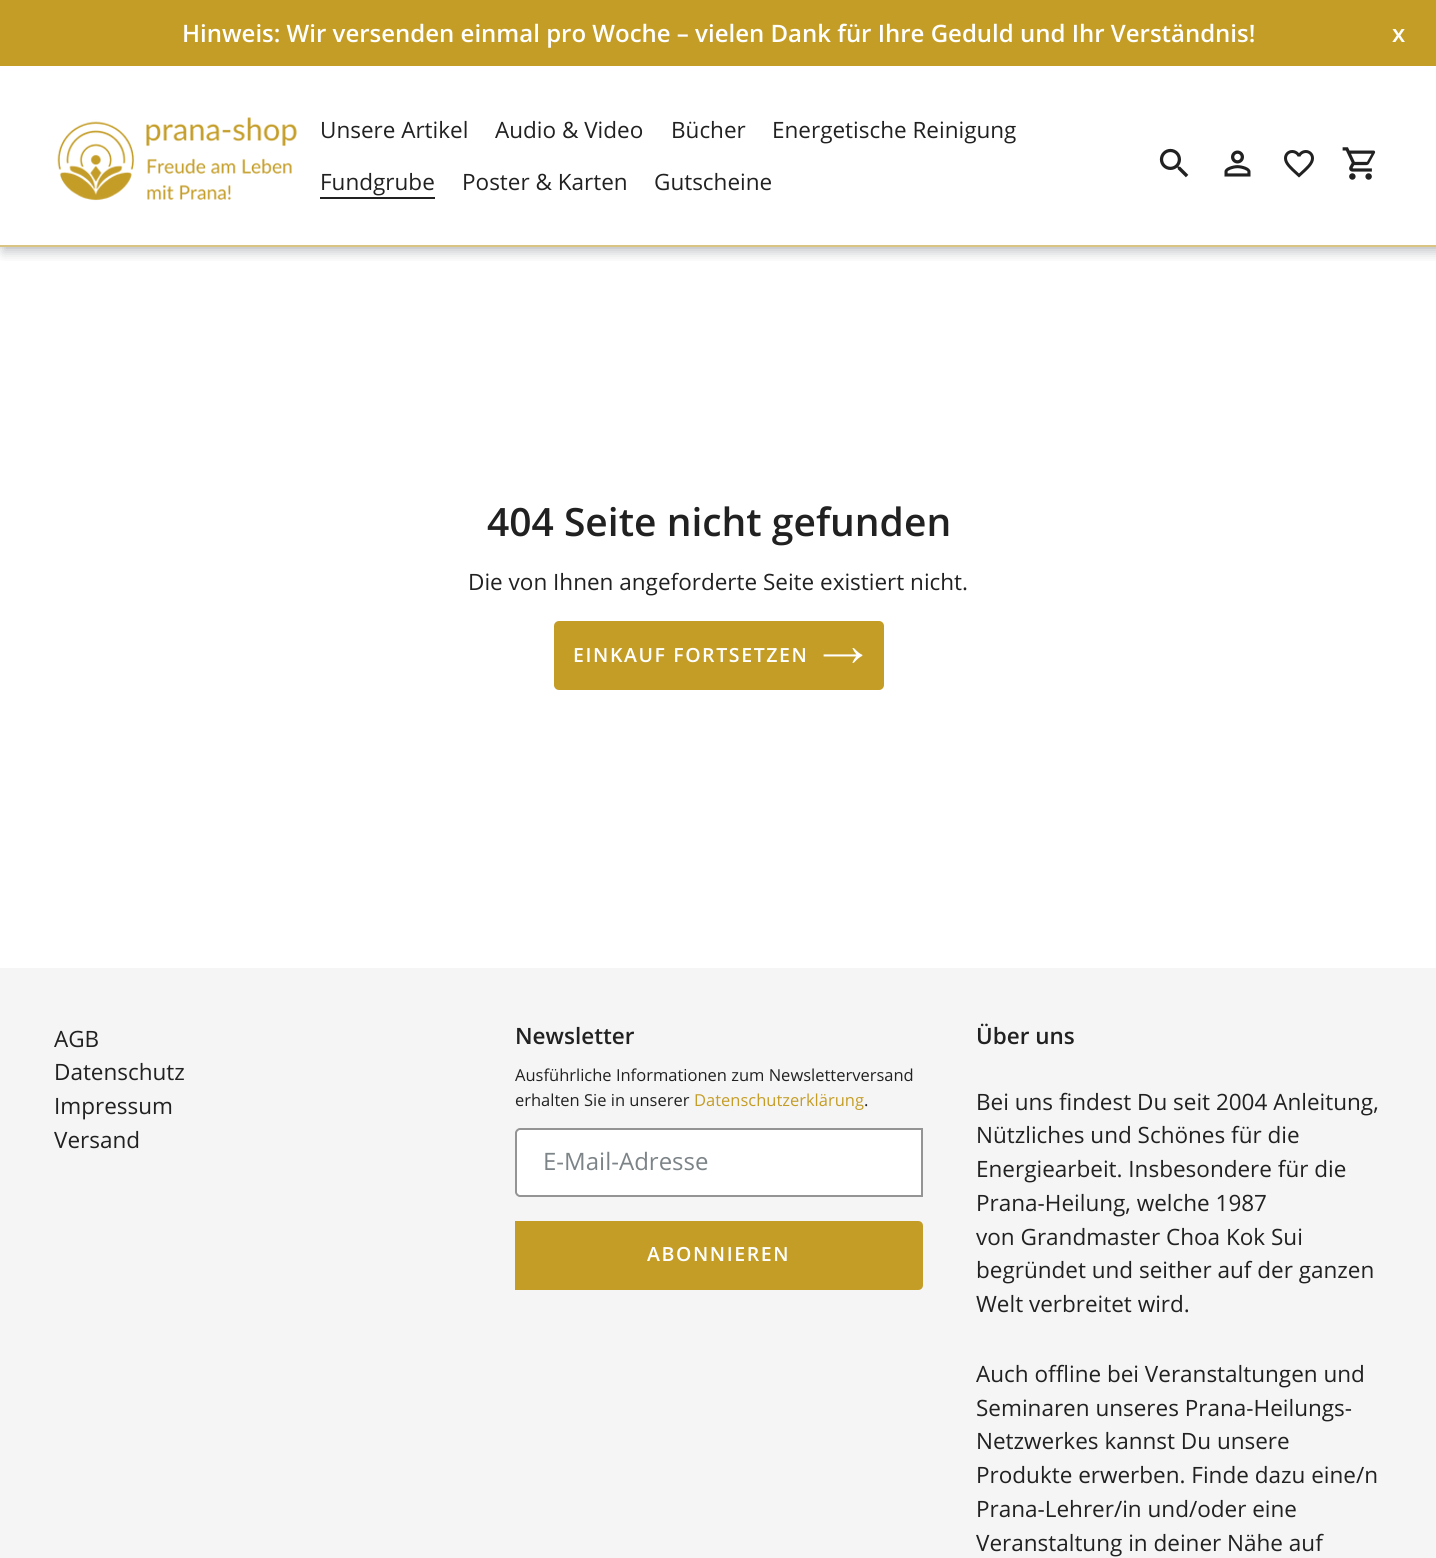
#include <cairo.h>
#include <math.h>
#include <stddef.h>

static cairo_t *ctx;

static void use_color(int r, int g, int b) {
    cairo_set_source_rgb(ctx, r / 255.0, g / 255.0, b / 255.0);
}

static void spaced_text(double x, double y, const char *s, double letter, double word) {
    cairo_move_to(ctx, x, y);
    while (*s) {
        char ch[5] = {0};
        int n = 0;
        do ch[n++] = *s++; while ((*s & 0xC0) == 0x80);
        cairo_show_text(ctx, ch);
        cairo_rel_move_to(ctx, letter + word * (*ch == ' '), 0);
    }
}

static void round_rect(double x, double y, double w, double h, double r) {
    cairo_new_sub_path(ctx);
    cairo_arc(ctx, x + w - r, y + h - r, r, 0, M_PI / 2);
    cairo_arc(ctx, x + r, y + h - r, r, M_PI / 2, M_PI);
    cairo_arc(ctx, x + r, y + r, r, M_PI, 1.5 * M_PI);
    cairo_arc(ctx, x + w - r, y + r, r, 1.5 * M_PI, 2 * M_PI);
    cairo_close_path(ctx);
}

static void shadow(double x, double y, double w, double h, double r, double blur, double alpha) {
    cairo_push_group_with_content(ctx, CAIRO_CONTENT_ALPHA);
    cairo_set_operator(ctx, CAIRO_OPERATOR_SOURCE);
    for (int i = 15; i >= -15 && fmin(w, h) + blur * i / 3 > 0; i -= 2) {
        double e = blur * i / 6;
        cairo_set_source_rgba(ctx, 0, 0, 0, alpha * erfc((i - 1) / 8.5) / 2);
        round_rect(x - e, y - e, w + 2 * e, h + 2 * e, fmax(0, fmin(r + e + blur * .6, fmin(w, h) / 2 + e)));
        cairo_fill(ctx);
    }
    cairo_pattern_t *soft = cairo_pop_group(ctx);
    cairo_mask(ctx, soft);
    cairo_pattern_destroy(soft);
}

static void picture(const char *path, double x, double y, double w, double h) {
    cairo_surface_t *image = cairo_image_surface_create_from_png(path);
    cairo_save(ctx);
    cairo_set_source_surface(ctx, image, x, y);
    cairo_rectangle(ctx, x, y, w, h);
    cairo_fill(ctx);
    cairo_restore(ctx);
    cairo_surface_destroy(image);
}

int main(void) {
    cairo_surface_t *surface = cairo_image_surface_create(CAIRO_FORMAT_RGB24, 1436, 1558);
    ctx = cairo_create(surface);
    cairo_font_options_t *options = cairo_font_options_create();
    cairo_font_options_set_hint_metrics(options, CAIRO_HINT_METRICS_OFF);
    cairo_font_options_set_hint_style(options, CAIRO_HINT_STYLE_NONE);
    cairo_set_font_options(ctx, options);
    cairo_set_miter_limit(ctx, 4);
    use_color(255, 255, 255);
    cairo_paint(ctx);
    cairo_save(ctx);
    cairo_rectangle(ctx, 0, 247, 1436, 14);
    cairo_clip(ctx);
    use_color(38, 50, 56);
    shadow(3, 6, 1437, 246, 0, 6, 0.28);
    cairo_restore(ctx);
    cairo_save(ctx);
    cairo_rectangle(ctx, 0, 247, 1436, 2);
    cairo_clip(ctx);
    use_color(38, 50, 56);
    shadow(0, 0, 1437, 246, 0, 3, 0.14);
    cairo_restore(ctx);
    use_color(218, 196, 131);
    cairo_rectangle(ctx, 0, 245, 1436, 2);
    cairo_fill(ctx);
    use_color(196, 157, 39);
    cairo_rectangle(ctx, 0, 0, 1436, 66);
    cairo_fill(ctx);
    cairo_select_font_face(ctx, "Open Sans SemiBold", CAIRO_FONT_SLANT_NORMAL, CAIRO_FONT_WEIGHT_NORMAL);
    cairo_set_font_size(ctx, 24);
    use_color(255, 255, 255);
    cairo_move_to(ctx, 182, 42);
    cairo_show_text(ctx, "Hinweis: Wir versenden einmal pro Woche – vielen Dank für Ihre Geduld und Ihr Verständnis!");
    cairo_move_to(ctx, 1392, 42);
    cairo_show_text(ctx, "x");
    picture("img1.png", 57, 117, 240, 84);
    cairo_select_font_face(ctx, "Open Sans", CAIRO_FONT_SLANT_NORMAL, CAIRO_FONT_WEIGHT_NORMAL);
    cairo_set_font_size(ctx, 22.5);
    use_color(33, 33, 33);
    cairo_move_to(ctx, 320, 138);
    cairo_show_text(ctx, "Unsere Artikel");
    cairo_move_to(ctx, 495, 138);
    cairo_show_text(ctx, "Audio & Video");
    cairo_move_to(ctx, 671, 138);
    cairo_show_text(ctx, "Bücher");
    cairo_move_to(ctx, 772, 138);
    cairo_show_text(ctx, "Energetische Reinigung");
    cairo_move_to(ctx, 320, 190);
    cairo_show_text(ctx, "Fundgrube");
    cairo_rectangle(ctx, 320, 197, 115, 2);
    cairo_fill(ctx);
    cairo_move_to(ctx, 462, 190);
    cairo_show_text(ctx, "Poster & Karten");
    cairo_move_to(ctx, 654, 190);
    cairo_show_text(ctx, "Gutscheine");
    picture("img2.png", 1159, 148, 30, 30);
    picture("img3.png", 1224, 150, 27, 27);
    picture("img4.png", 1284, 150, 30, 28);
    picture("img5.png", 1342, 147, 34, 33);
    cairo_select_font_face(ctx, "Open Sans SemiBold", CAIRO_FONT_SLANT_NORMAL, CAIRO_FONT_WEIGHT_NORMAL);
    cairo_set_font_size(ctx, 39);
    cairo_move_to(ctx, 487, 536);
    cairo_show_text(ctx, "404 Seite nicht gefunden");
    cairo_select_font_face(ctx, "Open Sans", CAIRO_FONT_SLANT_NORMAL, CAIRO_FONT_WEIGHT_NORMAL);
    cairo_set_font_size(ctx, 22.5);
    cairo_move_to(ctx, 468, 590);
    cairo_show_text(ctx, "Die von Ihnen angeforderte Seite existiert nicht.");
    use_color(196, 157, 39);
    round_rect(554, 621, 330, 69, 5);
    cairo_fill(ctx);
    cairo_select_font_face(ctx, "Open Sans SemiBold", CAIRO_FONT_SLANT_NORMAL, CAIRO_FONT_WEIGHT_NORMAL);
    cairo_set_font_size(ctx, 19.5);
    use_color(255, 255, 255);
    spaced_text(573, 662, "EINKAUF FORTSETZEN", 1.6, 0);
    picture("img6.png", 823, 648, 40, 15);
    use_color(245, 245, 245);
    cairo_rectangle(ctx, 0, 968, 1436, 590);
    cairo_fill(ctx);
    cairo_select_font_face(ctx, "Open Sans", CAIRO_FONT_SLANT_NORMAL, CAIRO_FONT_WEIGHT_NORMAL);
    cairo_set_font_size(ctx, 22.5);
    use_color(33, 33, 33);
    cairo_move_to(ctx, 54, 1047);
    cairo_show_text(ctx, "AGB");
    cairo_move_to(ctx, 54, 1080);
    cairo_show_text(ctx, "Datenschutz");
    cairo_move_to(ctx, 54, 1114);
    cairo_show_text(ctx, "Impressum");
    cairo_move_to(ctx, 54, 1148);
    cairo_show_text(ctx, "Versand");
    cairo_select_font_face(ctx, "Open Sans SemiBold", CAIRO_FONT_SLANT_NORMAL, CAIRO_FONT_WEIGHT_NORMAL);
    cairo_move_to(ctx, 515, 1044);
    cairo_show_text(ctx, "Newsletter");
    cairo_select_font_face(ctx, "Open Sans", CAIRO_FONT_SLANT_NORMAL, CAIRO_FONT_WEIGHT_NORMAL);
    cairo_set_font_size(ctx, 16.5);
    cairo_move_to(ctx, 515, 1081);
    cairo_show_text(ctx, "Ausführliche Informationen zum Newsletterversand");
    cairo_move_to(ctx, 515, 1106);
    cairo_show_text(ctx, "erhalten Sie in unserer");
    use_color(196, 157, 39);
    cairo_move_to(ctx, 694, 1106);
    cairo_show_text(ctx, "Datenschutzerklärung");
    use_color(33, 33, 33);
    cairo_move_to(ctx, 864, 1106);
    cairo_show_text(ctx, ".");
    use_color(255, 255, 255);
    cairo_new_path(ctx);
    cairo_move_to(ctx, 520, 1129);
    cairo_line_to(ctx, 922, 1129);
    cairo_line_to(ctx, 922, 1196);
    cairo_line_to(ctx, 520, 1196);
    cairo_curve_to(ctx, 518, 1196, 516, 1194, 516, 1192);
    cairo_line_to(ctx, 516, 1133);
    cairo_curve_to(ctx, 516, 1131, 518, 1129, 520, 1129);
    cairo_close_path(ctx);
    cairo_fill_preserve(ctx);
    use_color(148, 148, 148);
    cairo_stroke(ctx);
    cairo_set_font_size(ctx, 24);
    use_color(125, 132, 136);
    cairo_move_to(ctx, 543, 1170);
    cairo_show_text(ctx, "E-Mail-Adresse");
    use_color(196, 157, 39);
    cairo_new_path(ctx);
    cairo_move_to(ctx, 515, 1221);
    cairo_line_to(ctx, 918, 1221);
    cairo_curve_to(ctx, 921, 1221, 923, 1223, 923, 1226);
    cairo_line_to(ctx, 923, 1285);
    cairo_curve_to(ctx, 923, 1288, 921, 1290, 918, 1290);
    cairo_line_to(ctx, 515, 1290);
    cairo_close_path(ctx);
    cairo_fill(ctx);
    cairo_select_font_face(ctx, "Open Sans SemiBold", CAIRO_FONT_SLANT_NORMAL, CAIRO_FONT_WEIGHT_NORMAL);
    cairo_set_font_size(ctx, 19.5);
    use_color(255, 255, 255);
    spaced_text(647, 1261, "ABONNIEREN", 1.6, 0);
    cairo_set_font_size(ctx, 22.5);
    use_color(33, 33, 33);
    cairo_move_to(ctx, 976, 1044);
    cairo_show_text(ctx, "Über uns");
    cairo_select_font_face(ctx, "Open Sans", CAIRO_FONT_SLANT_NORMAL, CAIRO_FONT_WEIGHT_NORMAL);
    cairo_move_to(ctx, 976, 1110);
    cairo_show_text(ctx, "Bei uns findest Du seit 2004 Anleitung,");
    cairo_move_to(ctx, 976, 1143);
    cairo_show_text(ctx, "Nützliches und Schönes für die");
    cairo_move_to(ctx, 976, 1177);
    cairo_show_text(ctx, "Energiearbeit. Insbesondere für die");
    cairo_move_to(ctx, 976, 1211);
    cairo_show_text(ctx, "Prana-Heilung, welche 1987");
    cairo_move_to(ctx, 976, 1245);
    cairo_show_text(ctx, "von Grandmaster Choa Kok Sui");
    cairo_move_to(ctx, 976, 1278);
    cairo_show_text(ctx, "begründet und seither auf der ganzen");
    cairo_move_to(ctx, 976, 1312);
    cairo_show_text(ctx, "Welt verbreitet wird.");
    cairo_move_to(ctx, 976, 1382);
    cairo_show_text(ctx, "Auch offline bei Veranstaltungen und");
    cairo_move_to(ctx, 976, 1416);
    cairo_show_text(ctx, "Seminaren unseres Prana-Heilungs-");
    cairo_move_to(ctx, 976, 1449);
    cairo_show_text(ctx, "Netzwerkes kannst Du unsere");
    cairo_move_to(ctx, 976, 1483);
    cairo_show_text(ctx, "Produkte erwerben. Finde dazu eine/n");
    cairo_move_to(ctx, 976, 1517);
    cairo_show_text(ctx, "Prana-Lehrer/in und/oder eine");
    cairo_move_to(ctx, 976, 1551);
    cairo_show_text(ctx, "Veranstaltung in deiner Nähe auf");
    cairo_surface_write_to_png(surface, "result.png");
    cairo_font_options_destroy(options);
    cairo_destroy(ctx);
    cairo_surface_destroy(surface);
    return 0;
}
